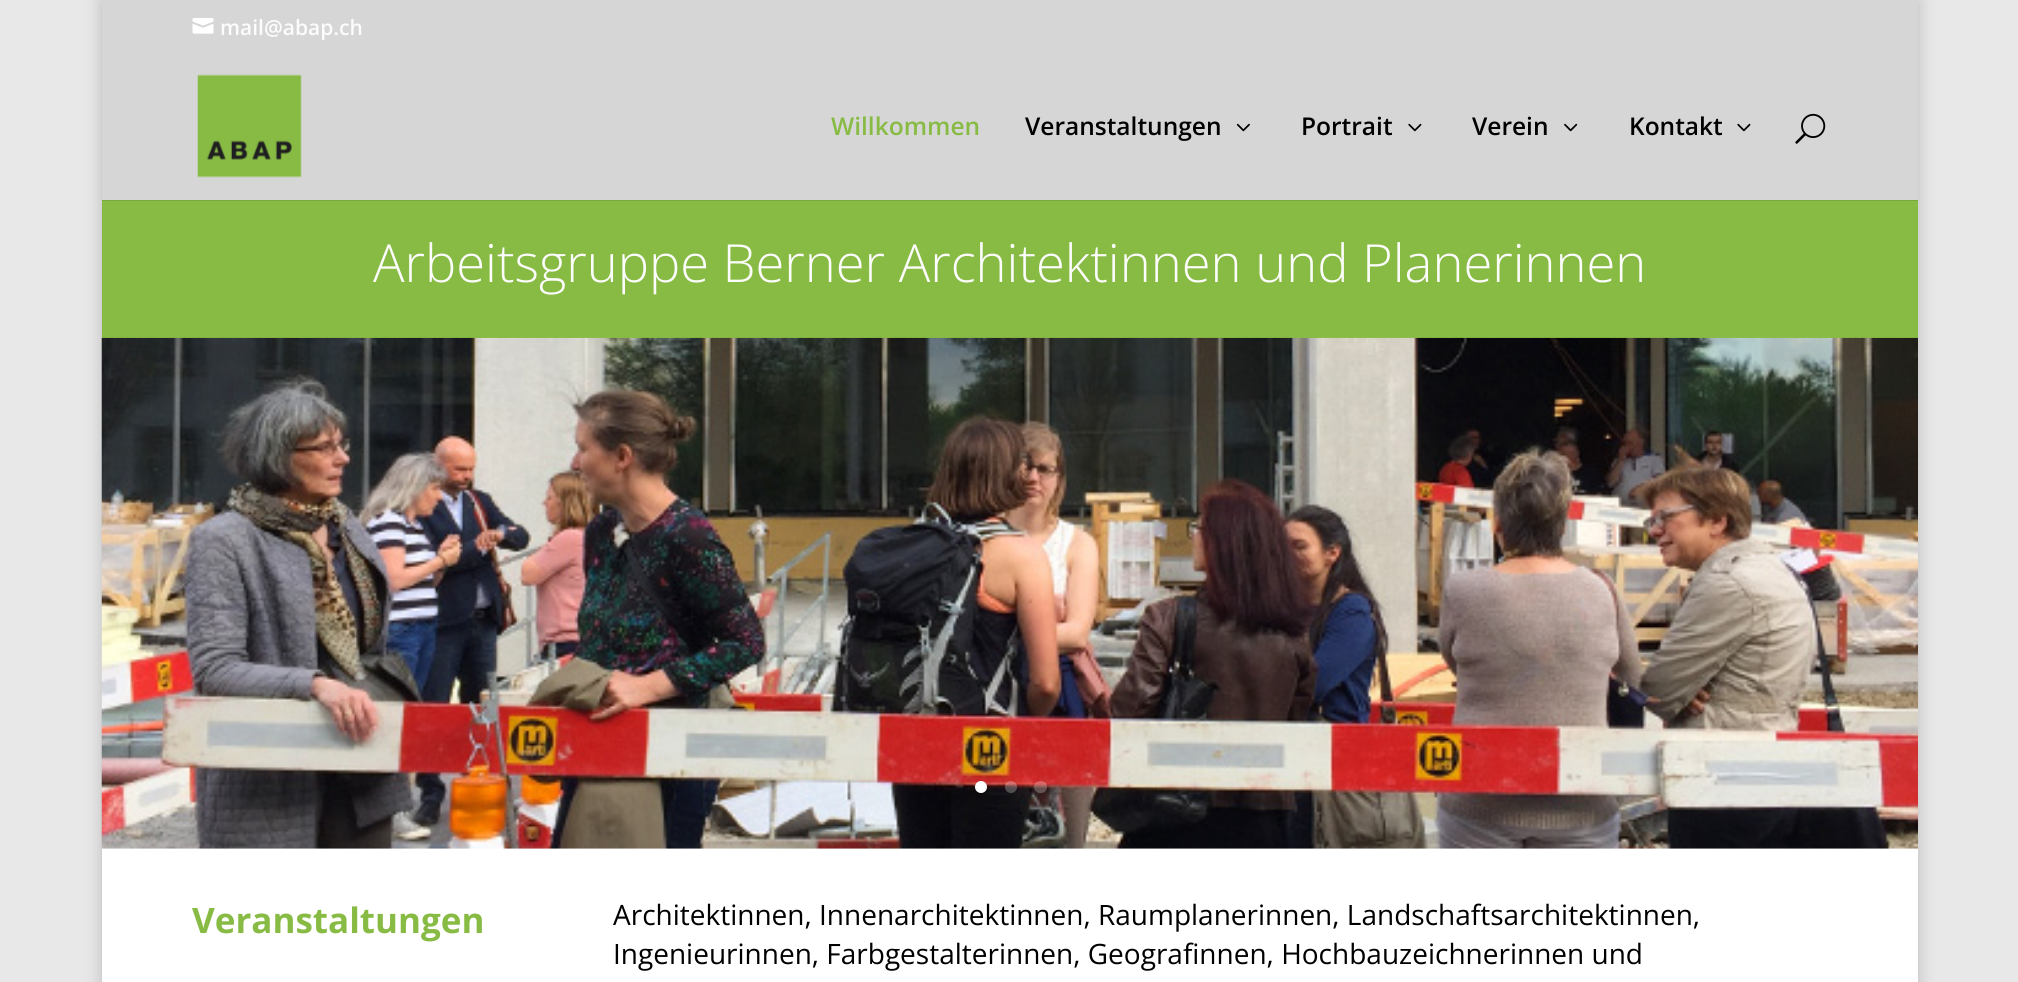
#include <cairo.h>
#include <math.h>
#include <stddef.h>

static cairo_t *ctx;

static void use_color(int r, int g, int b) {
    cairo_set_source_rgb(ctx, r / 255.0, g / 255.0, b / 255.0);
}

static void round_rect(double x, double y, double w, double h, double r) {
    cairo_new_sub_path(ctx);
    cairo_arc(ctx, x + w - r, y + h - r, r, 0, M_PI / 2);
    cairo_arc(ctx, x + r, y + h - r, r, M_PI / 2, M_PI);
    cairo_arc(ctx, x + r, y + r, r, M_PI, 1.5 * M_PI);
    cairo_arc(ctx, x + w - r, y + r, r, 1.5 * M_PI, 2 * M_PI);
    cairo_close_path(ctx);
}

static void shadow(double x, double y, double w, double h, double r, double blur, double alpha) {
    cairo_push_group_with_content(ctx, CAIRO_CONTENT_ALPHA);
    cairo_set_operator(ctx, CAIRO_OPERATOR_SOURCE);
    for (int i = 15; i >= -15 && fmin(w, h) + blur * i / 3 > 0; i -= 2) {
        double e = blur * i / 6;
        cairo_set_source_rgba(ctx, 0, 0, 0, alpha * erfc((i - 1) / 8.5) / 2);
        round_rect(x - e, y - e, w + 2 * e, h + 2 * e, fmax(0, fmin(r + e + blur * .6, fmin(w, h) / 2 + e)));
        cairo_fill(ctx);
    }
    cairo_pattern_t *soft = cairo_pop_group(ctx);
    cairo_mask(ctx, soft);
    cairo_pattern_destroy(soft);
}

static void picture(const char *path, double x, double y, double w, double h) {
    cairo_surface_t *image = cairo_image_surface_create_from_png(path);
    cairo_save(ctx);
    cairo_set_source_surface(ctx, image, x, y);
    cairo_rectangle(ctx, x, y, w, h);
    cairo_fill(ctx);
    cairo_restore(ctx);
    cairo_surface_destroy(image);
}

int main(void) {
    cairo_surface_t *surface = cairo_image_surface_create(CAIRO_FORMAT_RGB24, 2018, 982);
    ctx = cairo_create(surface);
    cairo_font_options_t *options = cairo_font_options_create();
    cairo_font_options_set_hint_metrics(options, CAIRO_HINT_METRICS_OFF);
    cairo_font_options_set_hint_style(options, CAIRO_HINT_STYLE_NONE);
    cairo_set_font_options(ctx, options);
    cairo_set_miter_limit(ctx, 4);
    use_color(232, 232, 232);
    cairo_paint(ctx);
    use_color(0, 0, 0);
    shadow(102, 0, 1816, 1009, 0, 9, 0.2);
    use_color(214, 214, 214);
    cairo_rectangle(ctx, 102, 0, 1816, 200);
    cairo_fill(ctx);
    picture("img1.png", 192, 18, 22, 16);
    cairo_select_font_face(ctx, "Open Sans SemiBold", CAIRO_FONT_SLANT_NORMAL, CAIRO_FONT_WEIGHT_NORMAL);
    cairo_set_font_size(ctx, 21);
    use_color(252, 252, 252);
    cairo_move_to(ctx, 220, 35);
    cairo_show_text(ctx, "mail@abap.ch");
    use_color(122, 168, 61);
    cairo_rectangle(ctx, 102, 200, 1816, 1);
    cairo_fill(ctx);
    picture("img2.png", 197, 74, 105, 104);
    cairo_set_font_size(ctx, 24.5);
    use_color(136, 187, 68);
    cairo_move_to(ctx, 831, 135);
    cairo_show_text(ctx, "Willkommen");
    use_color(0, 0, 0);
    cairo_move_to(ctx, 1025, 135);
    cairo_show_text(ctx, "Veranstaltungen");
    picture("img3.png", 1236, 123, 14, 9);
    cairo_move_to(ctx, 1301, 135);
    cairo_show_text(ctx, "Portrait");
    picture("img4.png", 1408, 123, 14, 9);
    cairo_move_to(ctx, 1472, 135);
    cairo_show_text(ctx, "Verein");
    picture("img5.png", 1564, 123, 14, 9);
    cairo_move_to(ctx, 1629, 135);
    cairo_show_text(ctx, "Kontakt");
    picture("img4.png", 1737, 123, 14, 9);
    picture("img6.png", 1795, 113, 31, 31);
    use_color(136, 187, 68);
    cairo_rectangle(ctx, 102, 201, 1816, 137);
    cairo_fill(ctx);
    cairo_select_font_face(ctx, "Open Sans Light", CAIRO_FONT_SLANT_NORMAL, CAIRO_FONT_WEIGHT_NORMAL);
    cairo_set_font_size(ctx, 52.5);
    use_color(252, 252, 252);
    cairo_move_to(ctx, 373, 282);
    cairo_show_text(ctx, "Arbeitsgruppe Berner Architektinnen und Planerinnen");
    use_color(255, 255, 255);
    cairo_rectangle(ctx, 102, 848, 1816, 134);
    cairo_fill(ctx);
    picture("img7.png", 101, 337, 1817, 512);
    cairo_arc(ctx, 981, 787, 6, 0, 2 * M_PI);
    cairo_fill(ctx);
    cairo_set_source_rgba(ctx, 1, 1, 1, 0.25);
    cairo_arc(ctx, 1011, 787, 6, 0, 2 * M_PI);
    cairo_fill(ctx);
    round_rect(1034, 781, 13, 12, 6);
    cairo_fill(ctx);
    cairo_select_font_face(ctx, "Open Sans", CAIRO_FONT_SLANT_NORMAL, CAIRO_FONT_WEIGHT_BOLD);
    cairo_set_font_size(ctx, 35);
    use_color(136, 187, 68);
    cairo_move_to(ctx, 192, 933);
    cairo_show_text(ctx, "Veranstaltungen");
    cairo_select_font_face(ctx, "Open Sans", CAIRO_FONT_SLANT_NORMAL, CAIRO_FONT_WEIGHT_NORMAL);
    cairo_set_font_size(ctx, 28);
    use_color(0, 0, 0);
    cairo_move_to(ctx, 613, 925);
    cairo_show_text(ctx, "Architektinnen, Innenarchitektinnen, Raumplanerinnen, Landschaftsarchitektinnen,");
    cairo_move_to(ctx, 613, 964);
    cairo_show_text(ctx, "Ingenieurinnen, Farbgestalterinnen, Geografinnen, Hochbauzeichnerinnen und");
    cairo_surface_write_to_png(surface, "result.png");
    cairo_font_options_destroy(options);
    cairo_destroy(ctx);
    cairo_surface_destroy(surface);
    return 0;
}
